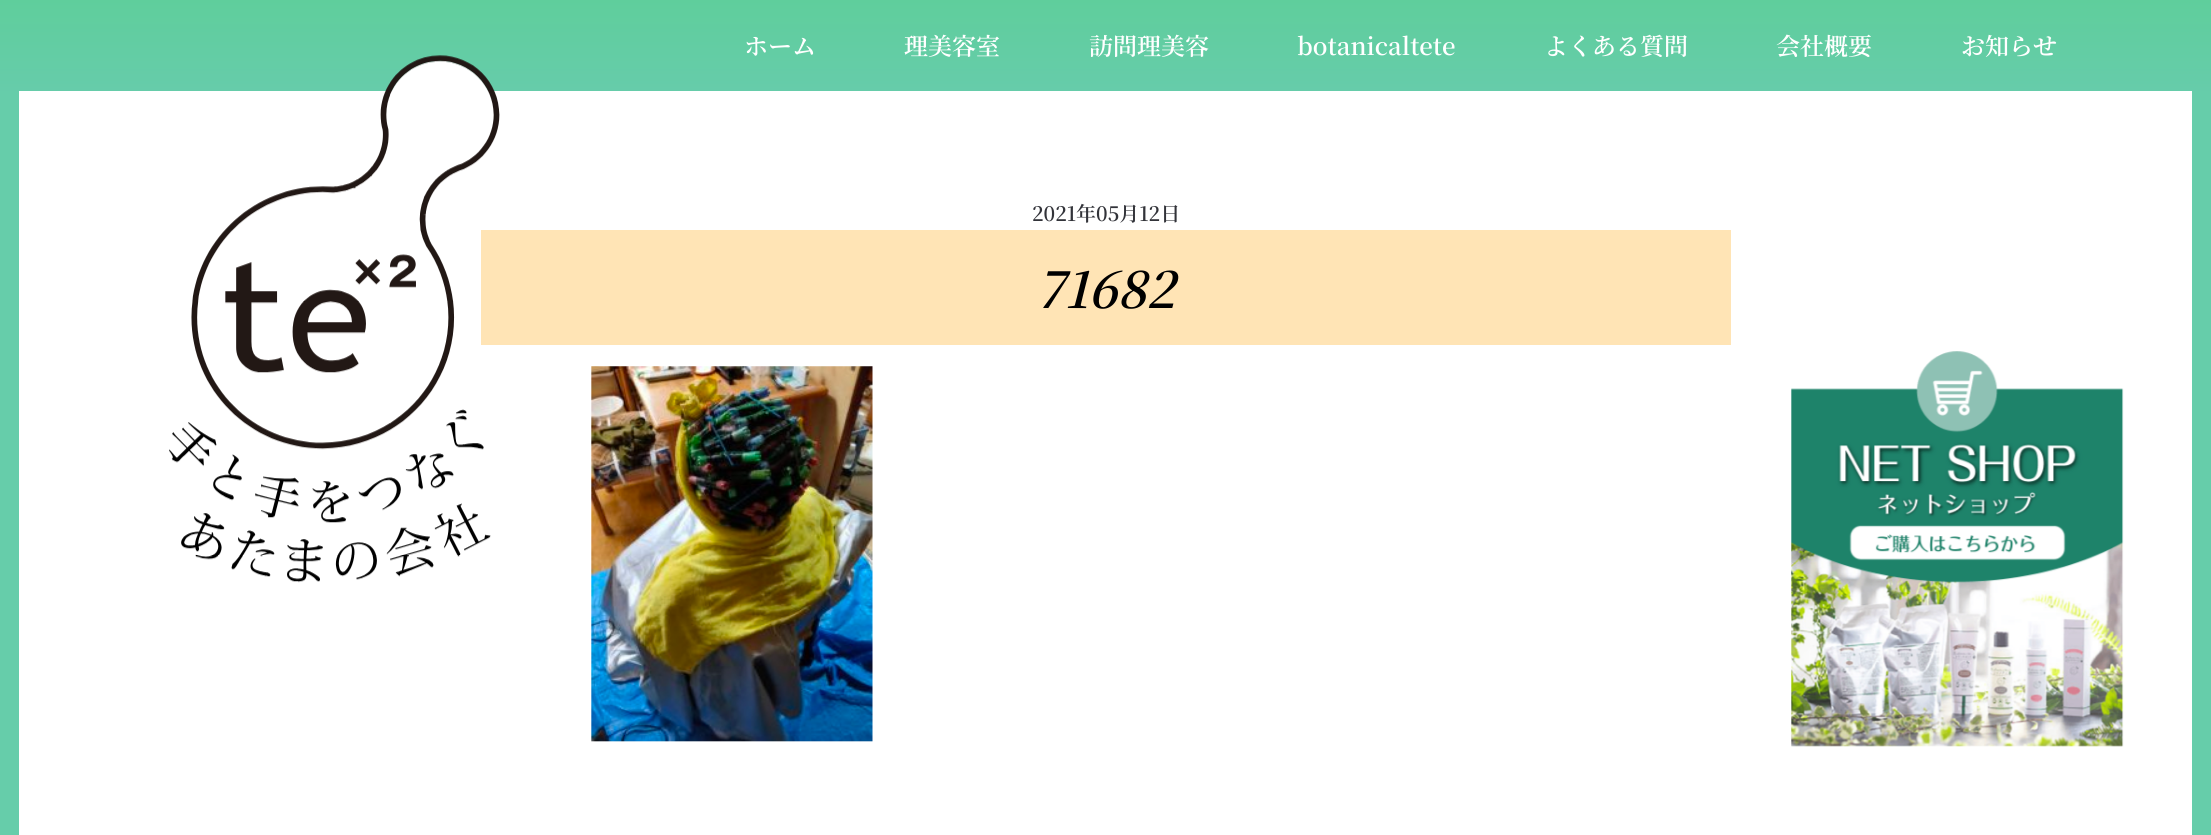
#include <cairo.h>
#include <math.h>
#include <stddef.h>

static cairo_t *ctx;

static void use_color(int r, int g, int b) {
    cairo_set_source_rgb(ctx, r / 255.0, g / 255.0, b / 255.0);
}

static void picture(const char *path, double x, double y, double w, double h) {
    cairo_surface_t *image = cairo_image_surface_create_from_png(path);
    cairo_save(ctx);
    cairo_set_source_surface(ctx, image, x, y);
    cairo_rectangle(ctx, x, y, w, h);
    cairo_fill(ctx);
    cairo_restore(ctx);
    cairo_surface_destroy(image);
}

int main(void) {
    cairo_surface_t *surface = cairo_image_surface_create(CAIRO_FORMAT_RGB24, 2211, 835);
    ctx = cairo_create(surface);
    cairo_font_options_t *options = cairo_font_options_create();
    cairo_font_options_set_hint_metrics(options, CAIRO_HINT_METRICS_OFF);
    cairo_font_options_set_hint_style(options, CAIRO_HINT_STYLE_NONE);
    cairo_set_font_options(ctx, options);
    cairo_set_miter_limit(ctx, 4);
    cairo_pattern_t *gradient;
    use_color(255, 255, 255);
    cairo_paint(ctx);
    cairo_rectangle(ctx, 9.5, 9.5, 2192, 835);
    use_color(102, 205, 170);
    cairo_set_line_width(ctx, 19);
    cairo_stroke(ctx);
    gradient = cairo_pattern_create_linear(1106, 0, 1106, 91);
    cairo_pattern_add_color_stop_rgba(gradient, 0, 0.373, 0.808, 0.612, 1);
    cairo_pattern_add_color_stop_rgba(gradient, 1, 0.4, 0.8, 0.667, 1);
    cairo_set_source(ctx, gradient);
    cairo_pattern_destroy(gradient);
    cairo_rectangle(ctx, 0, 0, 2211, 91);
    cairo_fill(ctx);
    cairo_select_font_face(ctx, "Noto Serif JP ExtraLight", CAIRO_FONT_SLANT_NORMAL, CAIRO_FONT_WEIGHT_NORMAL);
    cairo_set_font_size(ctx, 24);
    use_color(255, 255, 255);
    cairo_move_to(ctx, 744, 55);
    cairo_show_text(ctx, "ホーム");
    cairo_move_to(ctx, 904, 55);
    cairo_show_text(ctx, "理美容室");
    cairo_move_to(ctx, 1089, 55);
    cairo_show_text(ctx, "訪問理美容");
    cairo_move_to(ctx, 1297, 55);
    cairo_show_text(ctx, "botanicaltete");
    cairo_move_to(ctx, 1544, 55);
    cairo_show_text(ctx, "よくある質問");
    cairo_move_to(ctx, 1776, 55);
    cairo_show_text(ctx, "会社概要");
    cairo_move_to(ctx, 1961, 55);
    cairo_show_text(ctx, "お知らせ");
    use_color(255, 228, 181);
    cairo_rectangle(ctx, 481, 230, 1250, 115);
    cairo_fill(ctx);
    picture("img1.png", 169, 55, 331, 528);
    cairo_set_font_size(ctx, 20);
    use_color(50, 51, 57);
    cairo_move_to(ctx, 1032, 221);
    cairo_show_text(ctx, "2021年05月12日");
    cairo_select_font_face(ctx, "Noto Serif JP ExtraLight", CAIRO_FONT_SLANT_ITALIC, CAIRO_FONT_WEIGHT_NORMAL);
    cairo_set_font_size(ctx, 50);
    use_color(0, 0, 0);
    cairo_move_to(ctx, 1036, 308);
    cairo_show_text(ctx, "71682");
    picture("img2.png", 591, 366, 282, 376);
    picture("img3.png", 1791, 351, 333, 396);
    cairo_surface_write_to_png(surface, "result.png");
    cairo_font_options_destroy(options);
    cairo_destroy(ctx);
    cairo_surface_destroy(surface);
    return 0;
}
